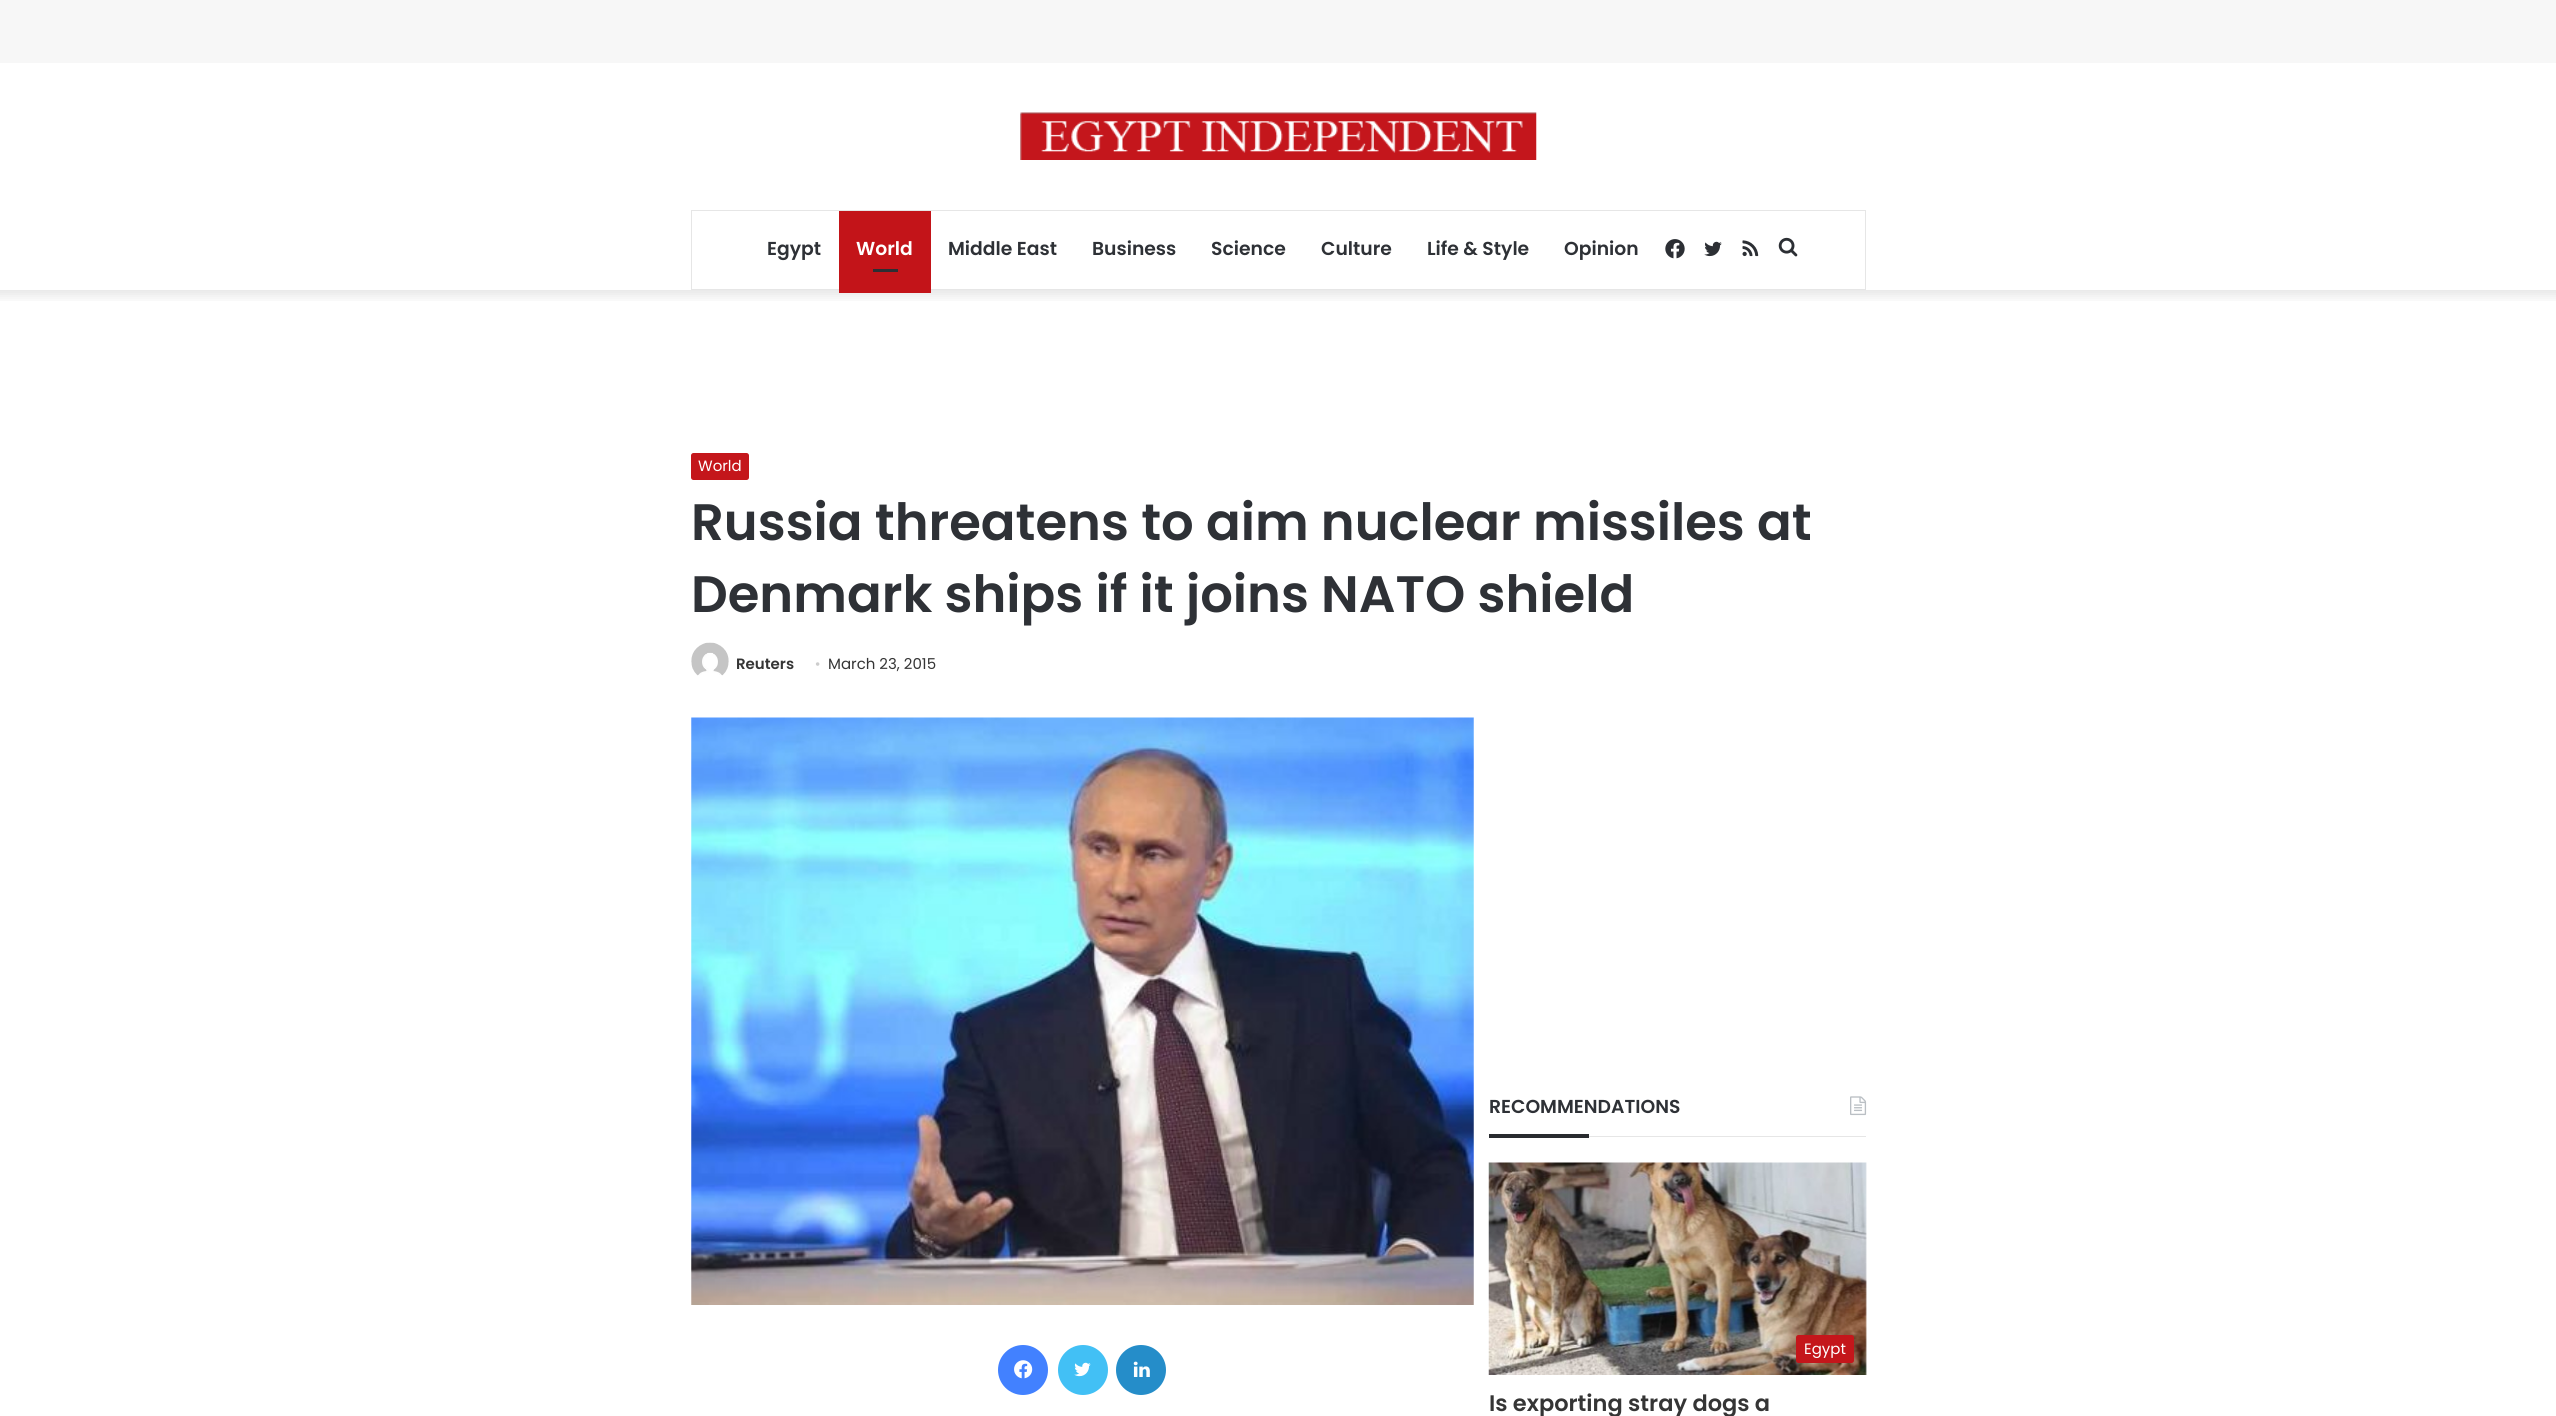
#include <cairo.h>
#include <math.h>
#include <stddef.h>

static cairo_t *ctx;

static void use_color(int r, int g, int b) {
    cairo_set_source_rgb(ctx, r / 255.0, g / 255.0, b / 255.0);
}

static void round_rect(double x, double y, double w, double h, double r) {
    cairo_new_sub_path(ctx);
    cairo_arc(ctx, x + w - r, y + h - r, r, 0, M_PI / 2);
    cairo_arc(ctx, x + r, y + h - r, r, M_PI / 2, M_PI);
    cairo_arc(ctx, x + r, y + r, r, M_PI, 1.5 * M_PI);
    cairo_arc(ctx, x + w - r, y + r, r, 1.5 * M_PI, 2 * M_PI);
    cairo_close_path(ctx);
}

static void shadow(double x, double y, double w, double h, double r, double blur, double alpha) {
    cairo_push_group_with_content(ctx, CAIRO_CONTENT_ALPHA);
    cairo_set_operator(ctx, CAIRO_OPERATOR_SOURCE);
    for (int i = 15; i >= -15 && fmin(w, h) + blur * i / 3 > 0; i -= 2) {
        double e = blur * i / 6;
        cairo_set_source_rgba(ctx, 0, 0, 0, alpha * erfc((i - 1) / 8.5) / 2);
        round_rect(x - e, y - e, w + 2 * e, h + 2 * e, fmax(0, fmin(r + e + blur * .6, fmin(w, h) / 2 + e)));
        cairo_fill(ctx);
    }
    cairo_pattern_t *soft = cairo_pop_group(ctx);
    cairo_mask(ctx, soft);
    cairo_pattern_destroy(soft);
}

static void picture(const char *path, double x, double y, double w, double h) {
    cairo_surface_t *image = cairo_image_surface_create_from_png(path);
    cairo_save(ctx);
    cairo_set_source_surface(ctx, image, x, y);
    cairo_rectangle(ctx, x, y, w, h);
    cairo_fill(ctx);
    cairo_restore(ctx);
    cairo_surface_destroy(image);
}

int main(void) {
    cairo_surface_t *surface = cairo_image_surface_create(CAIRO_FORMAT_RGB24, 2556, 1416);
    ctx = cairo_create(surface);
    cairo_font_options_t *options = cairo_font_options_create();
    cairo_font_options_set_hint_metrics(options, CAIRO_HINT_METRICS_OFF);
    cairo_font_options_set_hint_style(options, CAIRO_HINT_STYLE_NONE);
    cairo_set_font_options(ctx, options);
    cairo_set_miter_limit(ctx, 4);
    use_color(247, 247, 247);
    cairo_paint(ctx);
    use_color(255, 255, 255);
    cairo_rectangle(ctx, 0, 63, 2556, 1353);
    cairo_fill(ctx);
    cairo_save(ctx);
    cairo_rectangle(ctx, 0, 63, 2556, 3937);
    cairo_clip(ctx);
    cairo_rectangle(ctx, 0, 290, 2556, 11);
    cairo_clip(ctx);
    use_color(0, 0, 0);
    shadow(-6, 56, 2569, 240, 0, 6, 0.1);
    cairo_restore(ctx);
    picture("img1.png", 1020, 112, 517, 48);
    cairo_rectangle(ctx, 691.5, 210.5, 1174, 79);
    use_color(230, 230, 230);
    cairo_set_line_width(ctx, 1);
    cairo_stroke(ctx);
    cairo_select_font_face(ctx, "Poppins SemiBold", CAIRO_FONT_SLANT_NORMAL, CAIRO_FONT_WEIGHT_NORMAL);
    cairo_set_font_size(ctx, 18.75);
    use_color(46, 49, 54);
    cairo_move_to(ctx, 767, 255);
    cairo_show_text(ctx, "Egypt");
    use_color(195, 20, 25);
    cairo_rectangle(ctx, 839, 211, 92, 82);
    cairo_fill(ctx);
    use_color(255, 255, 255);
    cairo_move_to(ctx, 856, 255);
    cairo_show_text(ctx, "World");
    use_color(44, 47, 52);
    cairo_rectangle(ctx, 873, 269, 25, 3);
    cairo_fill(ctx);
    use_color(46, 49, 54);
    cairo_move_to(ctx, 948, 255);
    cairo_show_text(ctx, "Middle East");
    cairo_move_to(ctx, 1092, 255);
    cairo_show_text(ctx, "Business");
    cairo_move_to(ctx, 1211, 255);
    cairo_show_text(ctx, "Science");
    cairo_move_to(ctx, 1321, 255);
    cairo_show_text(ctx, "Culture");
    cairo_move_to(ctx, 1427, 255);
    cairo_show_text(ctx, "Life & Style");
    cairo_move_to(ctx, 1564, 255);
    cairo_show_text(ctx, "Opinion");
    picture("img2.png", 1665, 239, 20, 20);
    picture("img3.png", 1704, 241, 18, 16);
    picture("img4.png", 1742, 240, 17, 17);
    picture("img5.png", 1778, 237, 20, 20);
    use_color(196, 22, 27);
    round_rect(691, 453, 58, 27, 2.5);
    cairo_fill(ctx);
    cairo_select_font_face(ctx, "Poppins", CAIRO_FONT_SLANT_NORMAL, CAIRO_FONT_WEIGHT_NORMAL);
    cairo_set_font_size(ctx, 15);
    use_color(255, 255, 255);
    cairo_move_to(ctx, 698, 471);
    cairo_show_text(ctx, "World");
    cairo_select_font_face(ctx, "Poppins SemiBold", CAIRO_FONT_SLANT_NORMAL, CAIRO_FONT_WEIGHT_NORMAL);
    cairo_set_font_size(ctx, 51.25);
    use_color(46, 49, 54);
    cairo_move_to(ctx, 691, 540);
    cairo_show_text(ctx, "Russia threatens to aim nuclear missiles at");
    cairo_move_to(ctx, 691, 612);
    cairo_show_text(ctx, "Denmark ships if it joins NATO shield");
    picture("img6.png", 691, 642, 38, 34);
    cairo_set_font_size(ctx, 15);
    use_color(53, 53, 53);
    cairo_move_to(ctx, 736, 669);
    cairo_show_text(ctx, "Reuters");
    cairo_select_font_face(ctx, "Liberation Serif", CAIRO_FONT_SLANT_NORMAL, CAIRO_FONT_WEIGHT_NORMAL);
    use_color(205, 205, 205);
    cairo_move_to(ctx, 815, 669);
    cairo_show_text(ctx, "•");
    cairo_select_font_face(ctx, "Poppins", CAIRO_FONT_SLANT_NORMAL, CAIRO_FONT_WEIGHT_NORMAL);
    use_color(53, 53, 53);
    cairo_move_to(ctx, 828, 669);
    cairo_show_text(ctx, "March 23, 2015");
    picture("img7.png", 691, 717, 783, 588);
    use_color(66, 129, 255);
    cairo_arc(ctx, 1023, 1370, 25, 0, 2 * M_PI);
    cairo_fill(ctx);
    picture("img8.png", 1014, 1360, 19, 19);
    use_color(66, 192, 245);
    cairo_arc(ctx, 1083, 1370, 25, 0, 2 * M_PI);
    cairo_fill(ctx);
    picture("img9.png", 1074, 1362, 17, 15);
    use_color(37, 141, 201);
    cairo_arc(ctx, 1141, 1370, 25, 0, 2 * M_PI);
    cairo_fill(ctx);
    picture("img10.png", 1133, 1361, 17, 16);
    use_color(230, 230, 230);
    cairo_rectangle(ctx, 1589, 1136, 277, 1);
    cairo_fill(ctx);
    cairo_select_font_face(ctx, "Poppins SemiBold", CAIRO_FONT_SLANT_NORMAL, CAIRO_FONT_WEIGHT_NORMAL);
    cairo_set_font_size(ctx, 18.75);
    use_color(46, 49, 54);
    cairo_move_to(ctx, 1489, 1113);
    cairo_show_text(ctx, "RECOMMENDATIONS");
    picture("img11.png", 1850, 1096, 17, 20);
    use_color(41, 43, 47);
    cairo_rectangle(ctx, 1489, 1134, 100, 4);
    cairo_fill(ctx);
    picture("img12.png", 1488, 1162, 379, 213);
    use_color(196, 22, 27);
    round_rect(1796, 1335, 58, 28, 2.5);
    cairo_fill(ctx);
    cairo_select_font_face(ctx, "Poppins", CAIRO_FONT_SLANT_NORMAL, CAIRO_FONT_WEIGHT_NORMAL);
    cairo_set_font_size(ctx, 15);
    use_color(255, 255, 255);
    cairo_move_to(ctx, 1804, 1354);
    cairo_show_text(ctx, "Egypt");
    cairo_select_font_face(ctx, "Poppins SemiBold", CAIRO_FONT_SLANT_NORMAL, CAIRO_FONT_WEIGHT_NORMAL);
    cairo_set_font_size(ctx, 22.5);
    use_color(53, 53, 53);
    cairo_move_to(ctx, 1489, 1411);
    cairo_show_text(ctx, "Is exporting stray dogs a");
    cairo_surface_write_to_png(surface, "result.png");
    cairo_font_options_destroy(options);
    cairo_destroy(ctx);
    cairo_surface_destroy(surface);
    return 0;
}
